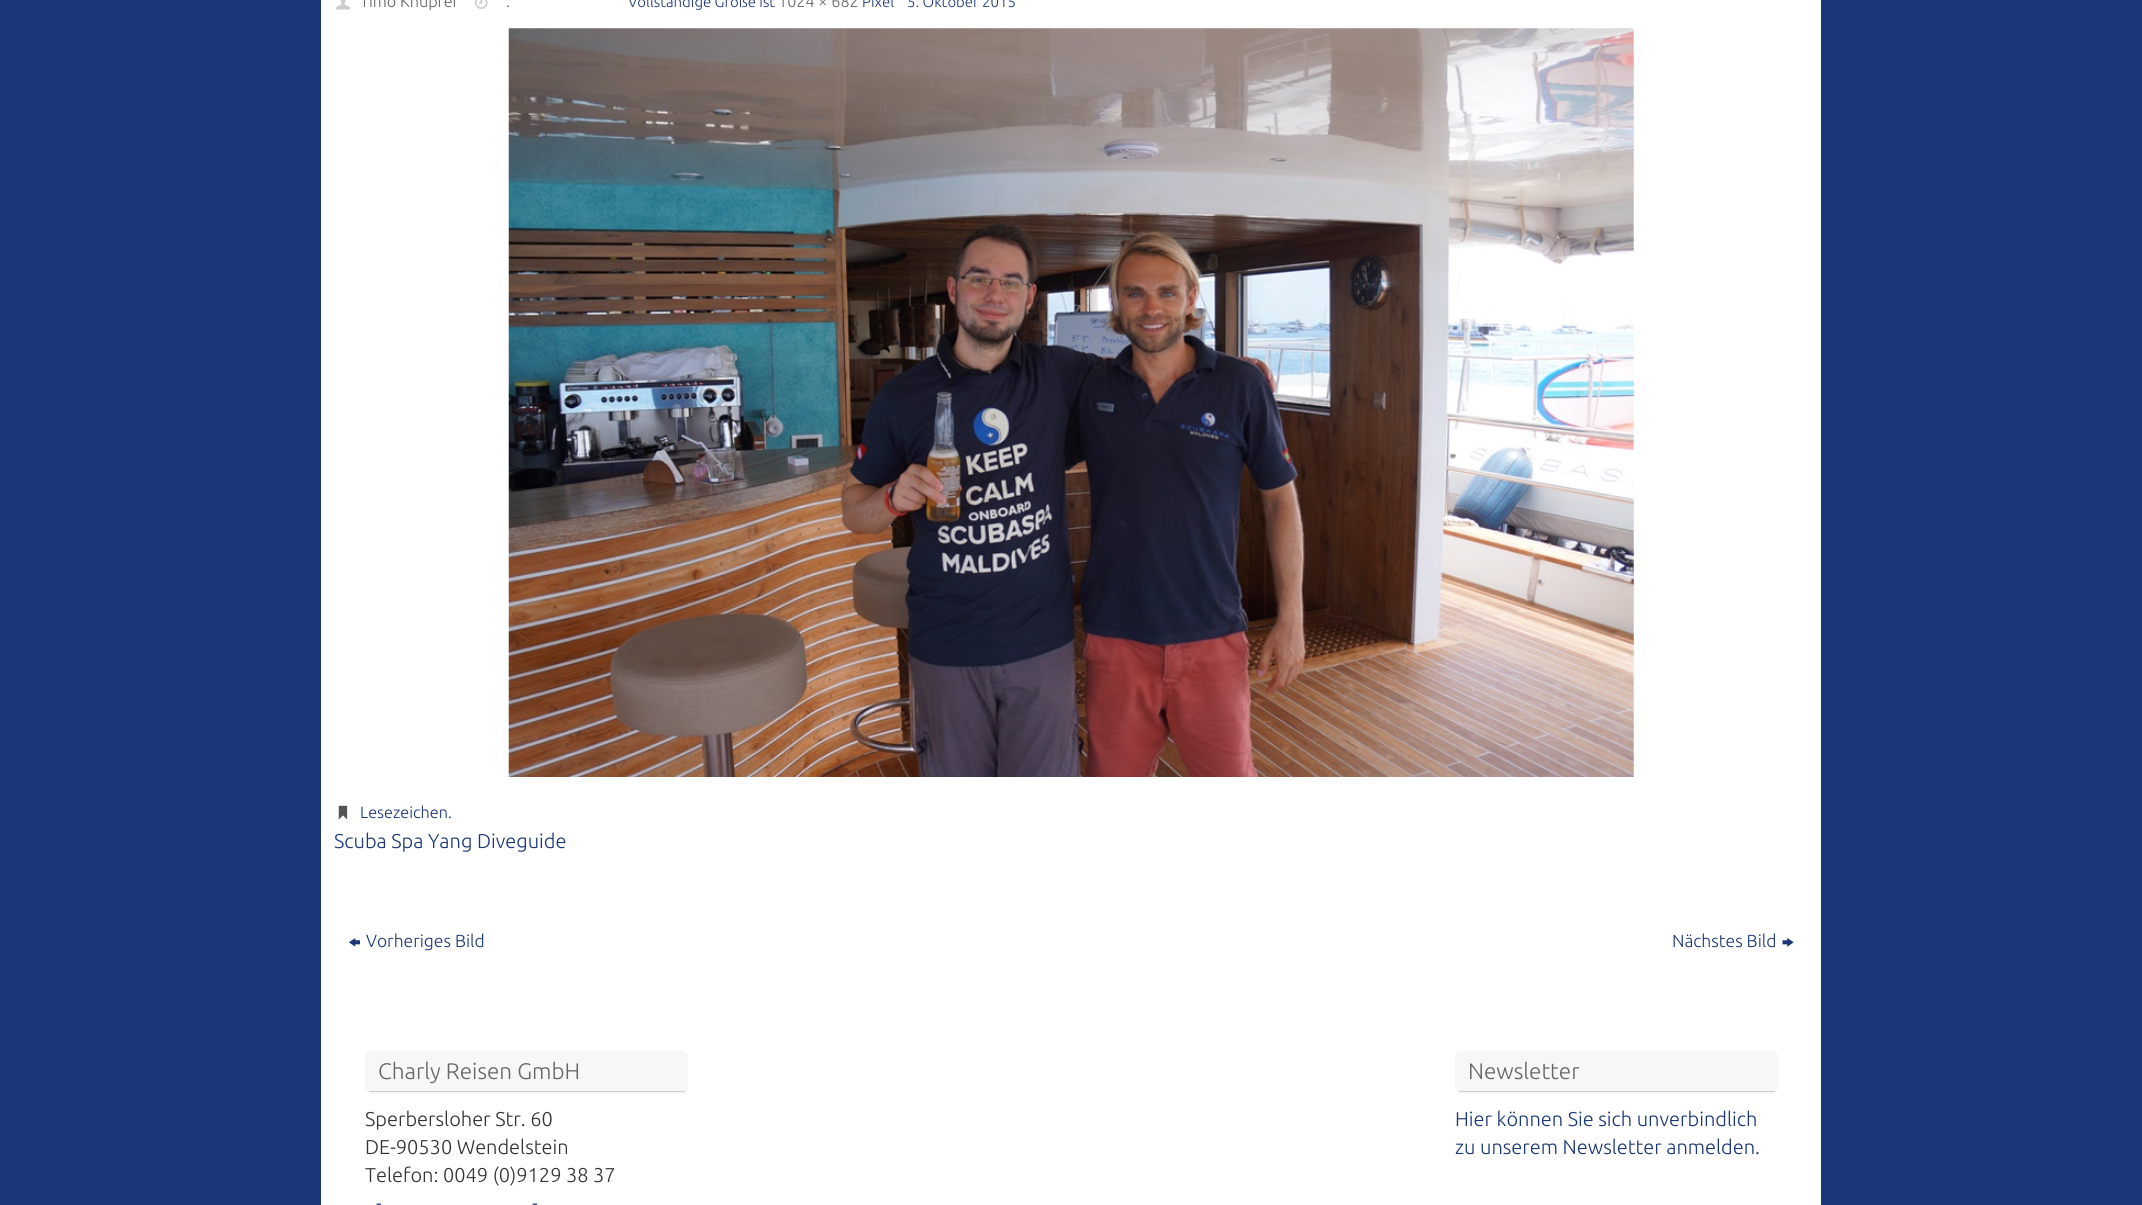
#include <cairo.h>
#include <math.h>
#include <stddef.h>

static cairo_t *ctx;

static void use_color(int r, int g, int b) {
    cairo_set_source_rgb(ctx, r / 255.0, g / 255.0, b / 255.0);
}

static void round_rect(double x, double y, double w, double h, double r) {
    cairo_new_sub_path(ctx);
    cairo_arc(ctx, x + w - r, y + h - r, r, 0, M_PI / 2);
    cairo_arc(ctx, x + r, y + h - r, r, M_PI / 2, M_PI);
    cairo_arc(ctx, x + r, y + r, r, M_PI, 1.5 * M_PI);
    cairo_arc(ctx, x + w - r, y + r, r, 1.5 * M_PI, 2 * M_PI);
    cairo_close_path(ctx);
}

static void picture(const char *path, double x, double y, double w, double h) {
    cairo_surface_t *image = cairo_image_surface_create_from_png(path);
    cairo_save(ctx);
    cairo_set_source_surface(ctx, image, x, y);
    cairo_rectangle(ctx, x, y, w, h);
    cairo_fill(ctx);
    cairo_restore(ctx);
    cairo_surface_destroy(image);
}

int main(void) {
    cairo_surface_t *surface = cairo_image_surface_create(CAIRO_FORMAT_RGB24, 2142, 1205);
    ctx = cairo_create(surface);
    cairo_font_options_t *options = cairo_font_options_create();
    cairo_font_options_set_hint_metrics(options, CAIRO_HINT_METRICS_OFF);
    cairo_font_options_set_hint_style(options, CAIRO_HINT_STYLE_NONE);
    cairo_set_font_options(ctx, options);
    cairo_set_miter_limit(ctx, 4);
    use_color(27, 55, 121);
    cairo_paint(ctx);
    use_color(255, 255, 255);
    cairo_rectangle(ctx, 321, 0, 1500, 1205);
    cairo_fill(ctx);
    picture("img1.png", 336, 0, 14, 10);
    cairo_select_font_face(ctx, "Ubuntu Light", CAIRO_FONT_SLANT_NORMAL, CAIRO_FONT_WEIGHT_NORMAL);
    cairo_set_font_size(ctx, 16.25);
    use_color(102, 102, 102);
    cairo_move_to(ctx, 360, 7);
    cairo_show_text(ctx, "Timo Knüpfer");
    picture("img2.png", 475, 0, 13, 9);
    cairo_move_to(ctx, 506, 7);
    cairo_show_text(ctx, ".");
    cairo_set_font_size(ctx, 15);
    use_color(27, 55, 121);
    cairo_move_to(ctx, 628, 7);
    cairo_show_text(ctx, "Vollständige Größe ist");
    cairo_set_font_size(ctx, 16.25);
    use_color(102, 102, 102);
    cairo_move_to(ctx, 778, 7);
    cairo_show_text(ctx, "1024 × 682");
    cairo_set_font_size(ctx, 15);
    use_color(27, 55, 121);
    cairo_move_to(ctx, 862, 7);
    cairo_show_text(ctx, "Pixel");
    cairo_move_to(ctx, 907, 7);
    cairo_show_text(ctx, "5. Oktober 2015");
    picture("img3.png", 508, 28, 1126, 749);
    picture("img4.png", 338, 805, 10, 15);
    cairo_set_font_size(ctx, 16.25);
    cairo_move_to(ctx, 360, 818);
    cairo_show_text(ctx, "Lesezeichen.");
    cairo_set_font_size(ctx, 20);
    cairo_move_to(ctx, 334, 848);
    cairo_show_text(ctx, "Scuba Spa Yang Diveguide");
    picture("img5.png", 348, 938, 12, 9);
    cairo_set_font_size(ctx, 17.5);
    cairo_move_to(ctx, 366, 947);
    cairo_show_text(ctx, "Vorheriges Bild");
    cairo_move_to(ctx, 1672, 947);
    cairo_show_text(ctx, "Nächstes Bild");
    picture("img6.png", 1782, 938, 12, 9);
    use_color(247, 247, 247);
    round_rect(365, 1051, 323, 42, 6);
    cairo_fill(ctx);
    use_color(207, 207, 207);
    cairo_rectangle(ctx, 369, 1091, 316, 1);
    cairo_fill(ctx);
    cairo_set_font_size(ctx, 22.5);
    use_color(102, 102, 102);
    cairo_move_to(ctx, 378, 1079);
    cairo_show_text(ctx, "Charly Reisen GmbH");
    cairo_set_font_size(ctx, 20);
    use_color(51, 51, 51);
    cairo_move_to(ctx, 365, 1126);
    cairo_show_text(ctx, "Sperbersloher Str. 60");
    cairo_move_to(ctx, 365, 1154);
    cairo_show_text(ctx, "DE-90530 Wendelstein");
    cairo_move_to(ctx, 365, 1182);
    cairo_show_text(ctx, "Telefon: 0049 (0)9129 38 37");
    use_color(27, 55, 121);
    cairo_move_to(ctx, 376, 1210);
    cairo_show_text(ctx, "-");
    cairo_move_to(ctx, 532, 1210);
    cairo_show_text(ctx, "-");
    use_color(247, 247, 247);
    round_rect(1455, 1051, 323, 42, 6);
    cairo_fill(ctx);
    use_color(207, 207, 207);
    cairo_rectangle(ctx, 1459, 1091, 316, 1);
    cairo_fill(ctx);
    cairo_set_font_size(ctx, 22.5);
    use_color(102, 102, 102);
    cairo_move_to(ctx, 1468, 1079);
    cairo_show_text(ctx, "Newsletter");
    cairo_set_font_size(ctx, 20);
    use_color(27, 55, 121);
    cairo_move_to(ctx, 1455, 1126);
    cairo_show_text(ctx, "Hier können Sie sich unverbindlich");
    cairo_move_to(ctx, 1455, 1154);
    cairo_show_text(ctx, "zu unserem Newsletter anmelden.");
    cairo_surface_write_to_png(surface, "result.png");
    cairo_font_options_destroy(options);
    cairo_destroy(ctx);
    cairo_surface_destroy(surface);
    return 0;
}
